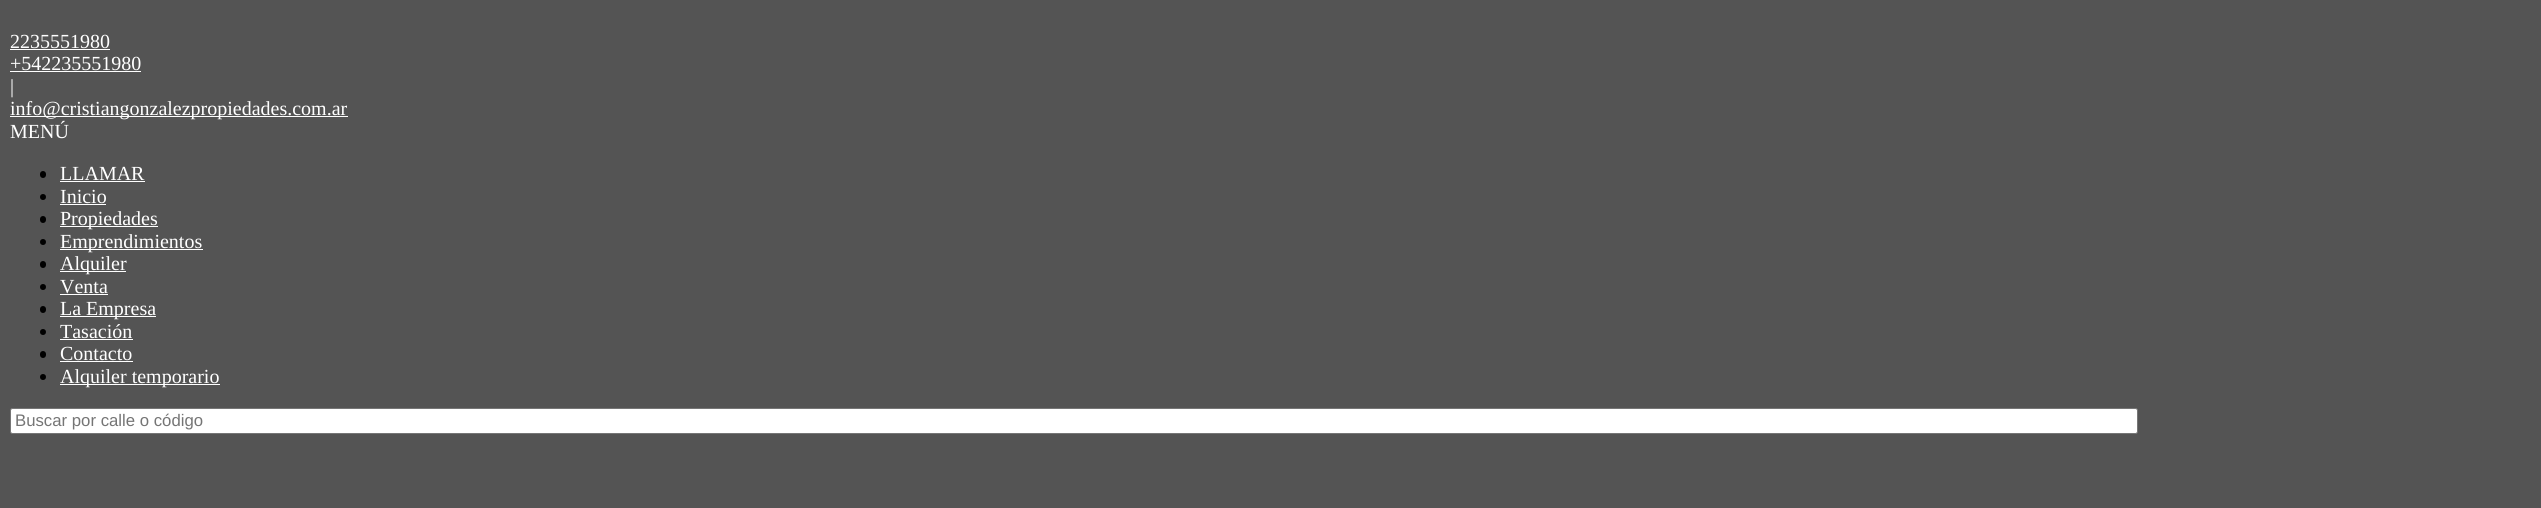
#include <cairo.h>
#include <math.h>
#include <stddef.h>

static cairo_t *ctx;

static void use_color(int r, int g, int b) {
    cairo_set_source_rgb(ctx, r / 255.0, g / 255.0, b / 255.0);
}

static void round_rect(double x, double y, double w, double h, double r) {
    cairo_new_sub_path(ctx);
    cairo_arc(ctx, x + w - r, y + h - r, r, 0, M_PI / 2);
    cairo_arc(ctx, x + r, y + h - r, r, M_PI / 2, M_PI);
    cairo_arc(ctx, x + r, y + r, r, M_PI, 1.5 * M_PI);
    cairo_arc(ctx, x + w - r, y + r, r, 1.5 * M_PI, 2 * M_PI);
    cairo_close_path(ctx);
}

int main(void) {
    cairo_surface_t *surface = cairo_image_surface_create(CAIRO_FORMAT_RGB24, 2541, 508);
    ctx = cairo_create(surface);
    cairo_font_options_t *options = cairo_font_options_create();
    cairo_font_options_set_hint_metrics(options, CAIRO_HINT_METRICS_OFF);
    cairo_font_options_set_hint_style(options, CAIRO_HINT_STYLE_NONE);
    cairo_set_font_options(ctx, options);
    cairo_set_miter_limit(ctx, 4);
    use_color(84, 84, 84);
    cairo_paint(ctx);
    cairo_select_font_face(ctx, "Liberation Serif", CAIRO_FONT_SLANT_NORMAL, CAIRO_FONT_WEIGHT_NORMAL);
    cairo_set_font_size(ctx, 20);
    use_color(255, 255, 255);
    cairo_move_to(ctx, 10, 48);
    cairo_show_text(ctx, "2235551980");
    cairo_rectangle(ctx, 10, 49, 100, 1);
    cairo_fill(ctx);
    cairo_move_to(ctx, 10, 70);
    cairo_show_text(ctx, "+542235551980");
    cairo_rectangle(ctx, 10, 71, 131, 1);
    cairo_fill(ctx);
    cairo_move_to(ctx, 10, 93);
    cairo_show_text(ctx, "|");
    cairo_rectangle(ctx, 10, 116, 338, 1);
    cairo_fill(ctx);
    cairo_move_to(ctx, 10, 115);
    cairo_show_text(ctx, "info@cristiangonzalezpropiedades.com.ar");
    cairo_move_to(ctx, 10, 138);
    cairo_show_text(ctx, "MENÚ");
    use_color(0, 0, 0);
    round_rect(40, 171, 6, 7, 3);
    cairo_fill(ctx);
    use_color(255, 255, 255);
    cairo_move_to(ctx, 60, 180);
    cairo_show_text(ctx, "LLAMAR");
    cairo_rectangle(ctx, 60, 181, 85, 1);
    cairo_fill(ctx);
    use_color(0, 0, 0);
    cairo_arc(ctx, 43, 197, 3, 0, 2 * M_PI);
    cairo_fill(ctx);
    use_color(255, 255, 255);
    cairo_move_to(ctx, 60, 203);
    cairo_show_text(ctx, "Inicio");
    cairo_rectangle(ctx, 60, 204, 46, 1);
    cairo_fill(ctx);
    use_color(0, 0, 0);
    round_rect(40, 216, 6, 7, 3);
    cairo_fill(ctx);
    use_color(255, 255, 255);
    cairo_rectangle(ctx, 60, 226, 98, 1);
    cairo_fill(ctx);
    cairo_move_to(ctx, 60, 225);
    cairo_show_text(ctx, "Propiedades");
    use_color(0, 0, 0);
    cairo_new_path(ctx);
    cairo_arc(ctx, 43, 242, 3, 0, 2 * M_PI);
    cairo_fill(ctx);
    use_color(255, 255, 255);
    cairo_rectangle(ctx, 60, 249, 143, 1);
    cairo_fill(ctx);
    cairo_move_to(ctx, 60, 248);
    cairo_show_text(ctx, "Emprendimientos");
    use_color(0, 0, 0);
    round_rect(40, 261, 6, 7, 3);
    cairo_fill(ctx);
    use_color(255, 255, 255);
    cairo_rectangle(ctx, 60, 271, 66, 1);
    cairo_fill(ctx);
    cairo_move_to(ctx, 60, 270);
    cairo_show_text(ctx, "Alquiler");
    use_color(0, 0, 0);
    cairo_new_path(ctx);
    cairo_arc(ctx, 43, 287, 3, 0, 2 * M_PI);
    cairo_fill(ctx);
    use_color(255, 255, 255);
    cairo_move_to(ctx, 60, 293);
    cairo_show_text(ctx, "Venta");
    cairo_rectangle(ctx, 60, 294, 48, 1);
    cairo_fill(ctx);
    use_color(0, 0, 0);
    round_rect(40, 306, 6, 7, 3);
    cairo_fill(ctx);
    use_color(255, 255, 255);
    cairo_rectangle(ctx, 60, 316, 96, 1);
    cairo_fill(ctx);
    cairo_move_to(ctx, 60, 315);
    cairo_show_text(ctx, "La Empresa");
    use_color(0, 0, 0);
    cairo_new_path(ctx);
    cairo_arc(ctx, 43, 332, 3, 0, 2 * M_PI);
    cairo_fill(ctx);
    use_color(255, 255, 255);
    cairo_move_to(ctx, 60, 338);
    cairo_show_text(ctx, "Tasación");
    cairo_rectangle(ctx, 60, 339, 73, 1);
    cairo_fill(ctx);
    use_color(0, 0, 0);
    round_rect(40, 351, 6, 7, 3);
    cairo_fill(ctx);
    use_color(255, 255, 255);
    cairo_move_to(ctx, 60, 360);
    cairo_show_text(ctx, "Contacto");
    cairo_rectangle(ctx, 60, 361, 73, 1);
    cairo_fill(ctx);
    use_color(0, 0, 0);
    cairo_arc(ctx, 43, 377, 3, 0, 2 * M_PI);
    cairo_fill(ctx);
    use_color(255, 255, 255);
    cairo_rectangle(ctx, 60, 384, 160, 1);
    cairo_fill(ctx);
    cairo_move_to(ctx, 60, 383);
    cairo_show_text(ctx, "Alquiler temporario");
    round_rect(10.5, 408.5, 2127, 25, 2);
    cairo_fill_preserve(ctx);
    use_color(118, 118, 118);
    cairo_set_line_width(ctx, 1);
    cairo_stroke(ctx);
    cairo_select_font_face(ctx, "Liberation Sans", CAIRO_FONT_SLANT_NORMAL, CAIRO_FONT_WEIGHT_NORMAL);
    cairo_set_font_size(ctx, 16.75);
    use_color(117, 117, 117);
    cairo_move_to(ctx, 15, 426);
    cairo_show_text(ctx, "Buscar por calle o código");
    cairo_surface_write_to_png(surface, "result.png");
    cairo_font_options_destroy(options);
    cairo_destroy(ctx);
    cairo_surface_destroy(surface);
    return 0;
}
